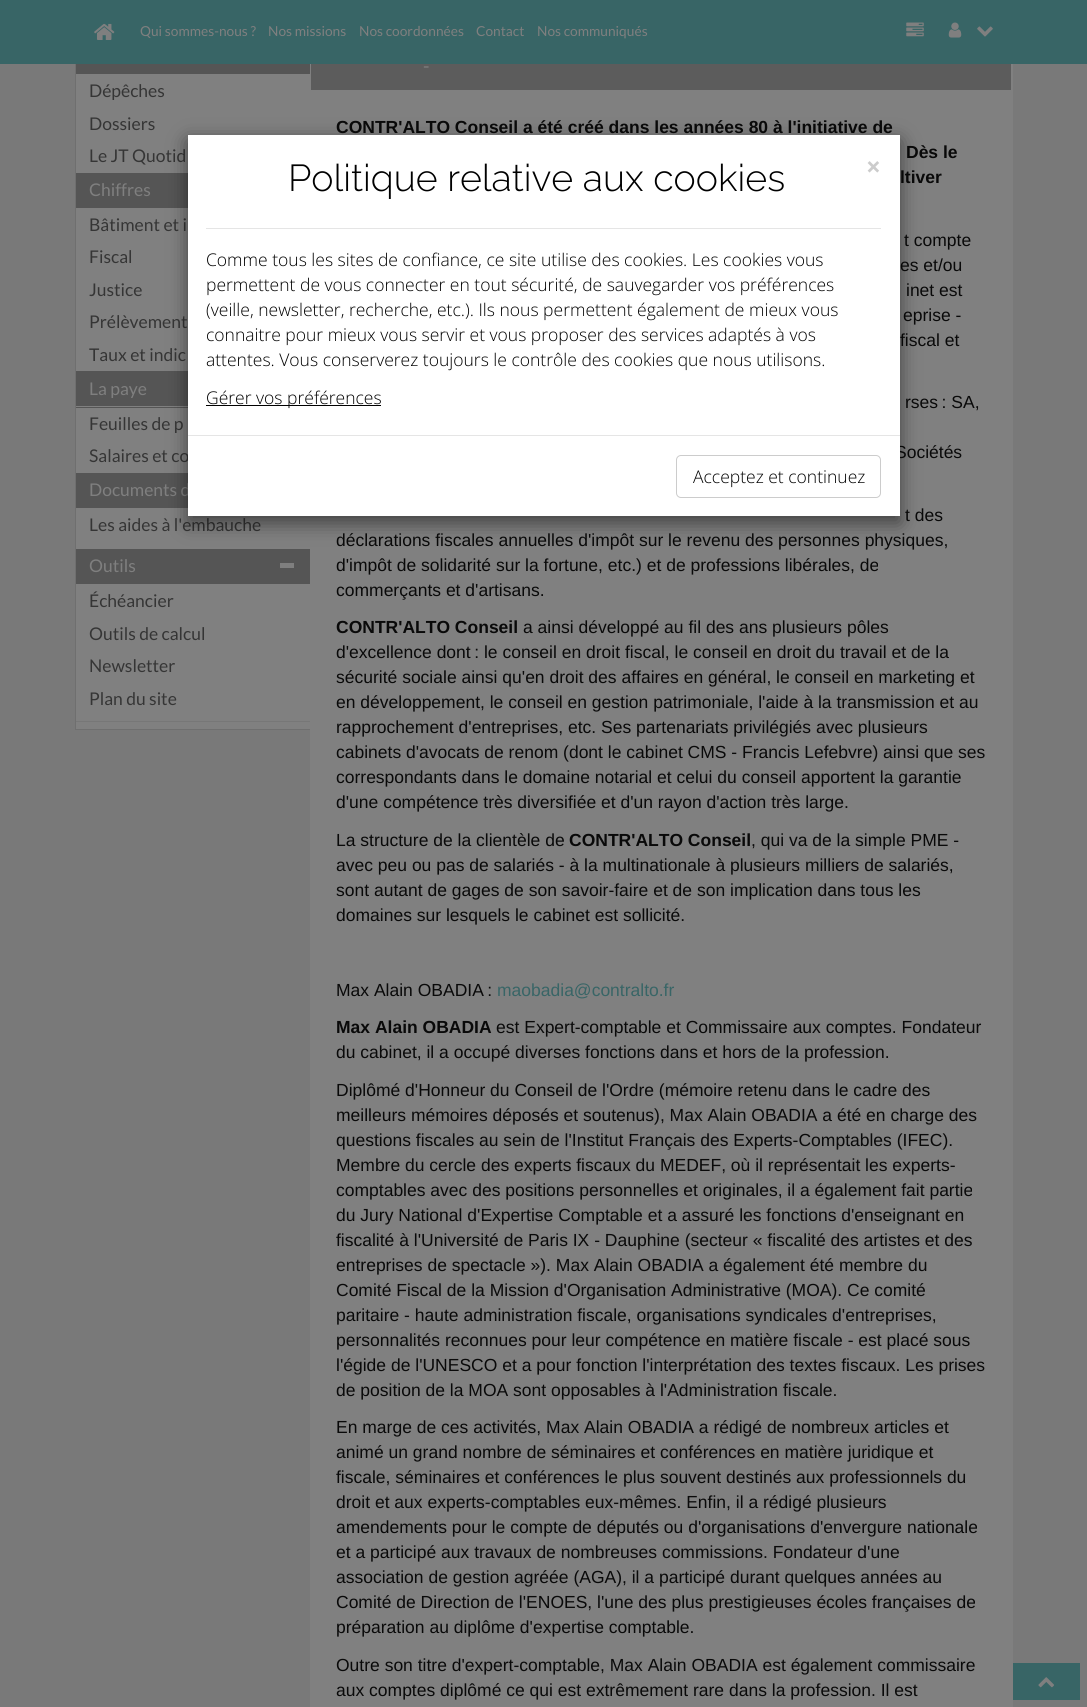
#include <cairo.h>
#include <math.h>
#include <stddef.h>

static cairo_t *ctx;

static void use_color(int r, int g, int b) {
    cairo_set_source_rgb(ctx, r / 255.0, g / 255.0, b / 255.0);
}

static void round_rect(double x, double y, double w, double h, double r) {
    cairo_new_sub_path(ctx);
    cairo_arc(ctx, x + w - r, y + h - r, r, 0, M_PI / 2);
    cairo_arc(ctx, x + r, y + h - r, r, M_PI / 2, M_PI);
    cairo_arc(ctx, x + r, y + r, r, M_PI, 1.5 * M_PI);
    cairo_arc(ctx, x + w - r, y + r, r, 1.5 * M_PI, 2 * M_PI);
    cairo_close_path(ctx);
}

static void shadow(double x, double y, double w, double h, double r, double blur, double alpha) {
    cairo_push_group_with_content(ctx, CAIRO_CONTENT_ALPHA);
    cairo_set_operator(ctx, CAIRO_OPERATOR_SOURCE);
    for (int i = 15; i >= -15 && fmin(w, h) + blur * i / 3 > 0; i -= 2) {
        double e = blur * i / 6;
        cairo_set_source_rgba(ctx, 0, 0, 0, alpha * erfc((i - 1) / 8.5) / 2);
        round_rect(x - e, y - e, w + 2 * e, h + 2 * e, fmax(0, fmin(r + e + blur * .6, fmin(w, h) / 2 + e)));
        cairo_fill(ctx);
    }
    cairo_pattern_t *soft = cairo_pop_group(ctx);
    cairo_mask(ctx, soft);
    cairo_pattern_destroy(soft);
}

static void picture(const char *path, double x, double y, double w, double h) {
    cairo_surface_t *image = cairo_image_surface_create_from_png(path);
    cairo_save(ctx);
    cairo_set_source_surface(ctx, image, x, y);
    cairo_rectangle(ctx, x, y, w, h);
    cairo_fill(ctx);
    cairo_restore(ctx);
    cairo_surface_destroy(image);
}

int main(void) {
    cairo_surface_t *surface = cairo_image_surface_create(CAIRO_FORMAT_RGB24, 1087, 1707);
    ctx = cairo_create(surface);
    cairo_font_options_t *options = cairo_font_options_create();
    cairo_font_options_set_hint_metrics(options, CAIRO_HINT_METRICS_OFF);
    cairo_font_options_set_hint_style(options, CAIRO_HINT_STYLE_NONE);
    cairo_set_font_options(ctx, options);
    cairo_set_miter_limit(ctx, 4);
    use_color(121, 121, 121);
    cairo_paint(ctx);
    use_color(56, 101, 102);
    cairo_rectangle(ctx, 0, 0, 1087, 64);
    cairo_fill(ctx);
    picture("img1.png", 94, 23, 21, 17);
    cairo_select_font_face(ctx, "Lato", CAIRO_FONT_SLANT_NORMAL, CAIRO_FONT_WEIGHT_NORMAL);
    cairo_set_font_size(ctx, 13.75);
    use_color(127, 127, 127);
    cairo_move_to(ctx, 140, 36);
    cairo_show_text(ctx, "Qui sommes-nous ?");
    cairo_move_to(ctx, 268, 36);
    cairo_show_text(ctx, "Nos missions");
    cairo_move_to(ctx, 359, 36);
    cairo_show_text(ctx, "Nos coordonnées");
    cairo_move_to(ctx, 476, 36);
    cairo_show_text(ctx, "Contact");
    cairo_move_to(ctx, 537, 36);
    cairo_show_text(ctx, "Nos communiqués");
    picture("img2.png", 906, 22, 18, 15);
    picture("img3.png", 948, 22, 14, 16);
    picture("img4.png", 977, 26, 16, 11);
    use_color(128, 128, 128);
    cairo_rectangle(ctx, 76, 74, 234, 655);
    cairo_fill(ctx);
    use_color(111, 111, 111);
    cairo_rectangle(ctx, 75, 729, 235, 1);
    cairo_fill(ctx);
    cairo_rectangle(ctx, 75, 64, 1, 666);
    cairo_fill(ctx);
    use_color(85, 85, 85);
    cairo_rectangle(ctx, 76, 64, 234, 10);
    cairo_fill(ctx);
    cairo_set_font_size(ctx, 17.5);
    use_color(53, 53, 53);
    cairo_move_to(ctx, 89, 97);
    cairo_show_text(ctx, "Dépêches");
    cairo_move_to(ctx, 89, 130);
    cairo_show_text(ctx, "Dossiers");
    cairo_move_to(ctx, 89, 162);
    cairo_show_text(ctx, "Le JT Quotid");
    use_color(85, 85, 85);
    cairo_rectangle(ctx, 76, 173, 112, 35);
    cairo_fill(ctx);
    use_color(127, 127, 127);
    cairo_move_to(ctx, 89, 196);
    cairo_show_text(ctx, "Chiffres");
    use_color(53, 53, 53);
    cairo_move_to(ctx, 89, 231);
    cairo_show_text(ctx, "Bâtiment et i");
    cairo_move_to(ctx, 89, 263);
    cairo_show_text(ctx, "Fiscal");
    cairo_move_to(ctx, 89, 296);
    cairo_show_text(ctx, "Justice");
    cairo_move_to(ctx, 89, 328);
    cairo_show_text(ctx, "Prélèvement");
    cairo_move_to(ctx, 89, 361);
    cairo_show_text(ctx, "Taux et indic");
    use_color(85, 85, 85);
    cairo_rectangle(ctx, 76, 371, 112, 37);
    cairo_fill(ctx);
    use_color(128, 128, 128);
    cairo_rectangle(ctx, 76, 406, 112, 1);
    cairo_fill(ctx);
    use_color(127, 127, 127);
    cairo_move_to(ctx, 89, 395);
    cairo_show_text(ctx, "La paye");
    use_color(53, 53, 53);
    cairo_move_to(ctx, 89, 430);
    cairo_show_text(ctx, "Feuilles de p");
    cairo_move_to(ctx, 89, 462);
    cairo_show_text(ctx, "Salaires et co");
    use_color(85, 85, 85);
    cairo_rectangle(ctx, 76, 473, 112, 35);
    cairo_fill(ctx);
    use_color(127, 127, 127);
    cairo_move_to(ctx, 89, 496);
    cairo_show_text(ctx, "Documents d");
    use_color(53, 53, 53);
    cairo_move_to(ctx, 89, 531);
    cairo_show_text(ctx, "Les aides à l'embauche");
    use_color(85, 85, 85);
    cairo_rectangle(ctx, 76, 549, 234, 35);
    cairo_fill(ctx);
    use_color(127, 127, 127);
    cairo_move_to(ctx, 89, 572);
    cairo_show_text(ctx, "Outils");
    cairo_rectangle(ctx, 280, 563, 14, 5);
    cairo_fill(ctx);
    use_color(53, 53, 53);
    cairo_move_to(ctx, 89, 607);
    cairo_show_text(ctx, "Échéancier");
    cairo_move_to(ctx, 89, 640);
    cairo_show_text(ctx, "Outils de calcul");
    cairo_move_to(ctx, 89, 672);
    cairo_show_text(ctx, "Newsletter");
    cairo_move_to(ctx, 89, 705);
    cairo_show_text(ctx, "Plan du site");
    use_color(119, 119, 119);
    cairo_rectangle(ctx, 76, 721, 234, 1);
    cairo_fill(ctx);
    use_color(128, 128, 128);
    cairo_rectangle(ctx, 310, 64, 703, 1643);
    cairo_fill(ctx);
    use_color(92, 92, 92);
    cairo_rectangle(ctx, 311, 64, 700, 26);
    cairo_fill(ctx);
    cairo_select_font_face(ctx, "Oswald Light", CAIRO_FONT_SLANT_NORMAL, CAIRO_FONT_WEIGHT_NORMAL);
    cairo_set_font_size(ctx, 22);
    use_color(127, 127, 127);
    cairo_move_to(ctx, 423, 73);
    cairo_show_text(ctx, "-");
    cairo_select_font_face(ctx, "Liberation Sans", CAIRO_FONT_SLANT_NORMAL, CAIRO_FONT_WEIGHT_BOLD);
    cairo_set_font_size(ctx, 17.5);
    use_color(9, 9, 9);
    cairo_move_to(ctx, 336, 133);
    cairo_show_text(ctx, "CONTR'ALTO Conseil a été créé dans les années 80 à l'initiative de");
    cairo_move_to(ctx, 906, 158);
    cairo_show_text(ctx, "Dès le");
    cairo_move_to(ctx, 900, 183);
    cairo_show_text(ctx, "ltiver");
    cairo_select_font_face(ctx, "Liberation Sans", CAIRO_FONT_SLANT_NORMAL, CAIRO_FONT_WEIGHT_NORMAL);
    cairo_move_to(ctx, 904, 246);
    cairo_show_text(ctx, "t compte");
    cairo_move_to(ctx, 900, 271);
    cairo_show_text(ctx, "es et/ou");
    cairo_move_to(ctx, 906, 296);
    cairo_show_text(ctx, "inet est");
    cairo_move_to(ctx, 903, 321);
    cairo_show_text(ctx, "eprise -");
    cairo_move_to(ctx, 900, 346);
    cairo_show_text(ctx, "fiscal et");
    cairo_move_to(ctx, 905, 408);
    cairo_show_text(ctx, "rses : SA,");
    cairo_move_to(ctx, 895, 458);
    cairo_show_text(ctx, "Sociétés");
    cairo_move_to(ctx, 905, 521);
    cairo_show_text(ctx, "t des");
    cairo_move_to(ctx, 336, 546);
    cairo_show_text(ctx, "déclarations fiscales annuelles d'impôt sur le revenu des personnes physiques,");
    cairo_move_to(ctx, 336, 571);
    cairo_show_text(ctx, "d'impôt de solidarité sur la fortune, etc.) et de professions libérales, de");
    cairo_move_to(ctx, 336, 596);
    cairo_show_text(ctx, "commerçants et d'artisans.");
    cairo_select_font_face(ctx, "Liberation Sans", CAIRO_FONT_SLANT_NORMAL, CAIRO_FONT_WEIGHT_BOLD);
    cairo_move_to(ctx, 336, 633);
    cairo_show_text(ctx, "CONTR'ALTO Conseil");
    cairo_select_font_face(ctx, "Liberation Sans", CAIRO_FONT_SLANT_NORMAL, CAIRO_FONT_WEIGHT_NORMAL);
    cairo_move_to(ctx, 523, 633);
    cairo_show_text(ctx, "a ainsi développé au fil des ans plusieurs pôles");
    cairo_move_to(ctx, 336, 658);
    cairo_show_text(ctx, "d'excellence dont : le conseil en droit fiscal, le conseil en droit du travail et de la");
    cairo_move_to(ctx, 336, 683);
    cairo_show_text(ctx, "sécurité sociale ainsi qu'en droit des affaires en général, le conseil en marketing et");
    cairo_move_to(ctx, 336, 708);
    cairo_show_text(ctx, "en développement, le conseil en gestion patrimoniale, l'aide à la transmission et au");
    cairo_move_to(ctx, 336, 733);
    cairo_show_text(ctx, "rapprochement d'entreprises, etc. Ses partenariats privilégiés avec plusieurs");
    cairo_move_to(ctx, 336, 758);
    cairo_show_text(ctx, "cabinets d'avocats de renom (dont le cabinet CMS - Francis Lefebvre) ainsi que ses");
    cairo_move_to(ctx, 336, 783);
    cairo_show_text(ctx, "correspondants dans le domaine notarial et celui du conseil apportent la garantie");
    cairo_move_to(ctx, 336, 808);
    cairo_show_text(ctx, "d'une compétence très diversifiée et d'un rayon d'action très large.");
    cairo_move_to(ctx, 336, 846);
    cairo_show_text(ctx, "La structure de la clientèle de");
    cairo_select_font_face(ctx, "Liberation Sans", CAIRO_FONT_SLANT_NORMAL, CAIRO_FONT_WEIGHT_BOLD);
    cairo_move_to(ctx, 569, 846);
    cairo_show_text(ctx, "CONTR'ALTO Conseil");
    cairo_select_font_face(ctx, "Liberation Sans", CAIRO_FONT_SLANT_NORMAL, CAIRO_FONT_WEIGHT_NORMAL);
    cairo_move_to(ctx, 751, 846);
    cairo_show_text(ctx, ", qui va de la simple PME -");
    cairo_move_to(ctx, 336, 871);
    cairo_show_text(ctx, "avec peu ou pas de salariés - à la multinationale à plusieurs milliers de salariés,");
    cairo_move_to(ctx, 336, 896);
    cairo_show_text(ctx, "sont autant de gages de son savoir-faire et de son implication dans tous les");
    cairo_move_to(ctx, 336, 921);
    cairo_show_text(ctx, "domaines sur lesquels le cabinet est sollicité.");
    cairo_move_to(ctx, 336, 996);
    cairo_show_text(ctx, "Max Alain OBADIA :");
    use_color(56, 101, 102);
    cairo_move_to(ctx, 497, 996);
    cairo_show_text(ctx, "maobadia@contralto.fr");
    cairo_select_font_face(ctx, "Liberation Sans", CAIRO_FONT_SLANT_NORMAL, CAIRO_FONT_WEIGHT_BOLD);
    use_color(9, 9, 9);
    cairo_move_to(ctx, 336, 1033);
    cairo_show_text(ctx, "Max Alain OBADIA");
    cairo_select_font_face(ctx, "Liberation Sans", CAIRO_FONT_SLANT_NORMAL, CAIRO_FONT_WEIGHT_NORMAL);
    cairo_move_to(ctx, 496, 1033);
    cairo_show_text(ctx, "est Expert-comptable et Commissaire aux comptes. Fondateur");
    cairo_move_to(ctx, 336, 1058);
    cairo_show_text(ctx, "du cabinet, il a occupé diverses fonctions dans et hors de la profession.");
    cairo_move_to(ctx, 336, 1096);
    cairo_show_text(ctx, "Diplômé d'Honneur du Conseil de l'Ordre (mémoire retenu dans le cadre des");
    cairo_move_to(ctx, 336, 1121);
    cairo_show_text(ctx, "meilleurs mémoires déposés et soutenus), Max Alain OBADIA a été en charge des");
    cairo_move_to(ctx, 336, 1146);
    cairo_show_text(ctx, "questions fiscales au sein de l'Institut Français des Experts-Comptables (IFEC).");
    cairo_move_to(ctx, 336, 1171);
    cairo_show_text(ctx, "Membre du cercle des experts fiscaux du MEDEF, où il représentait les experts-");
    cairo_move_to(ctx, 336, 1196);
    cairo_show_text(ctx, "comptables avec des positions personnelles et originales, il a également fait partie");
    cairo_move_to(ctx, 336, 1221);
    cairo_show_text(ctx, "du Jury National d'Expertise Comptable et a assuré les fonctions d'enseignant en");
    cairo_move_to(ctx, 336, 1246);
    cairo_show_text(ctx, "fiscalité à l'Université de Paris IX - Dauphine (secteur « fiscalité des artistes et des");
    cairo_move_to(ctx, 336, 1271);
    cairo_show_text(ctx, "entreprises de spectacle »). Max Alain OBADIA a également été membre du");
    cairo_move_to(ctx, 336, 1296);
    cairo_show_text(ctx, "Comité Fiscal de la Mission d'Organisation Administrative (MOA). Ce comité");
    cairo_move_to(ctx, 336, 1321);
    cairo_show_text(ctx, "paritaire - haute administration fiscale, organisations syndicales d'entreprises,");
    cairo_move_to(ctx, 336, 1346);
    cairo_show_text(ctx, "personnalités reconnues pour leur compétence en matière fiscale - est placé sous");
    cairo_move_to(ctx, 336, 1371);
    cairo_show_text(ctx, "l'égide de l'UNESCO et a pour fonction l'interprétation des textes fiscaux. Les prises");
    cairo_move_to(ctx, 336, 1396);
    cairo_show_text(ctx, "de position de la MOA sont opposables à l'Administration fiscale.");
    cairo_move_to(ctx, 336, 1433);
    cairo_show_text(ctx, "En marge de ces activités, Max Alain OBADIA a rédigé de nombreux articles et");
    cairo_move_to(ctx, 336, 1458);
    cairo_show_text(ctx, "animé un grand nombre de séminaires et conférences en matière juridique et");
    cairo_move_to(ctx, 336, 1483);
    cairo_show_text(ctx, "fiscale, séminaires et conférences le plus souvent destinés aux professionnels du");
    cairo_move_to(ctx, 336, 1508);
    cairo_show_text(ctx, "droit et aux experts-comptables eux-mêmes. Enfin, il a rédigé plusieurs");
    cairo_move_to(ctx, 336, 1533);
    cairo_show_text(ctx, "amendements pour le compte de députés ou d'organisations d'envergure nationale");
    cairo_move_to(ctx, 336, 1558);
    cairo_show_text(ctx, "et a participé aux travaux de nombreuses commissions. Fondateur d'une");
    cairo_move_to(ctx, 336, 1583);
    cairo_show_text(ctx, "association de gestion agréée (AGA), il a participé durant quelques années au");
    cairo_move_to(ctx, 336, 1608);
    cairo_show_text(ctx, "Comité de Direction de l'ENOES, l'une des plus prestigieuses écoles françaises de");
    cairo_move_to(ctx, 336, 1633);
    cairo_show_text(ctx, "préparation au diplôme d'expertise comptable.");
    cairo_move_to(ctx, 336, 1671);
    cairo_show_text(ctx, "Outre son titre d'expert-comptable, Max Alain OBADIA est également commissaire");
    cairo_move_to(ctx, 336, 1696);
    cairo_show_text(ctx, "aux comptes diplômé ce qui est extrêmement rare dans la profession. Il est");
    use_color(56, 101, 102);
    cairo_rectangle(ctx, 1013, 1663, 67, 37);
    cairo_fill(ctx);
    picture("img5.png", 1038, 1677, 16, 11);
    use_color(0, 0, 0);
    shadow(188, 141, 712, 382, 0, 9.5, 0.5);
    use_color(255, 255, 255);
    cairo_rectangle(ctx, 188, 135, 712, 381);
    cairo_fill(ctx);
    cairo_select_font_face(ctx, "Raleway Thin", CAIRO_FONT_SLANT_NORMAL, CAIRO_FONT_WEIGHT_NORMAL);
    cairo_set_font_size(ctx, 37.5);
    use_color(0, 0, 0);
    cairo_move_to(ctx, 288, 191);
    cairo_show_text(ctx, "Politique relative aux cookies");
    cairo_select_font_face(ctx, "Open Sans", CAIRO_FONT_SLANT_NORMAL, CAIRO_FONT_WEIGHT_BOLD);
    cairo_set_font_size(ctx, 26);
    use_color(204, 204, 204);
    cairo_move_to(ctx, 866, 176);
    cairo_show_text(ctx, "×");
    use_color(229, 229, 229);
    cairo_rectangle(ctx, 206, 228, 675, 1);
    cairo_fill(ctx);
    cairo_select_font_face(ctx, "Open Sans Light", CAIRO_FONT_SLANT_NORMAL, CAIRO_FONT_WEIGHT_NORMAL);
    cairo_set_font_size(ctx, 17.5);
    use_color(0, 0, 0);
    cairo_move_to(ctx, 206, 266);
    cairo_show_text(ctx, "Comme tous les sites de confiance, ce site utilise des cookies. Les cookies vous");
    cairo_move_to(ctx, 206, 291);
    cairo_show_text(ctx, "permettent de vous connecter en tout sécurité, de sauvegarder vos préférences");
    cairo_move_to(ctx, 206, 316);
    cairo_show_text(ctx, "(veille, newsletter, recherche, etc.). Ils nous permettent également de mieux vous");
    cairo_move_to(ctx, 206, 341);
    cairo_show_text(ctx, "connaitre pour mieux vous servir et vous proposer des services adaptés à vos");
    cairo_move_to(ctx, 206, 366);
    cairo_show_text(ctx, "attentes. Vous conserverez toujours le contrôle des cookies que nous utilisons.");
    cairo_rectangle(ctx, 206, 405, 175, 1);
    cairo_fill(ctx);
    cairo_move_to(ctx, 206, 404);
    cairo_show_text(ctx, "Gérer vos préférences");
    use_color(229, 229, 229);
    cairo_rectangle(ctx, 188, 435, 712, 1);
    cairo_fill(ctx);
    round_rect(676.5, 455.5, 204, 42, 4.5);
    use_color(204, 204, 204);
    cairo_set_line_width(ctx, 1);
    cairo_stroke(ctx);
    use_color(0, 0, 0);
    cairo_move_to(ctx, 693, 483);
    cairo_show_text(ctx, "Acceptez et continuez");
    cairo_surface_write_to_png(surface, "result.png");
    cairo_font_options_destroy(options);
    cairo_destroy(ctx);
    cairo_surface_destroy(surface);
    return 0;
}
